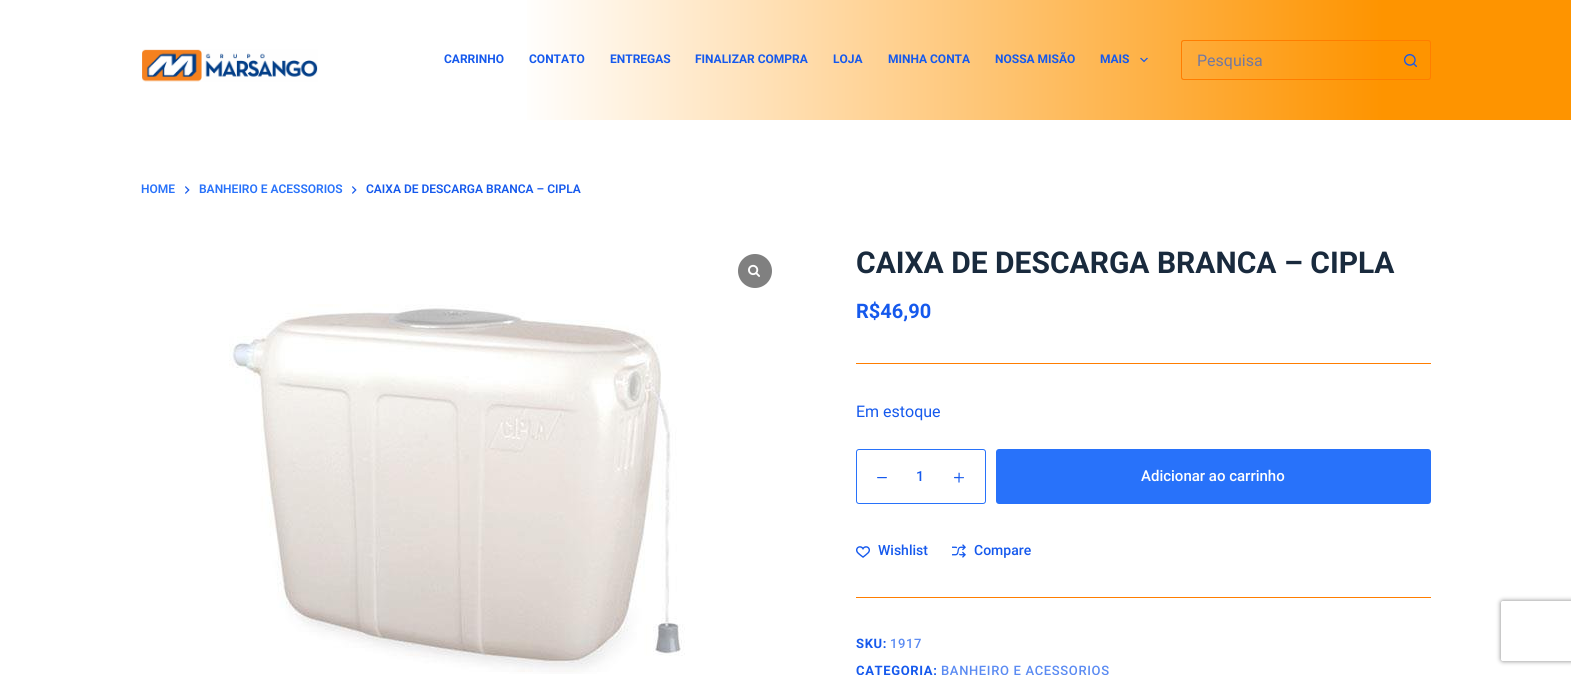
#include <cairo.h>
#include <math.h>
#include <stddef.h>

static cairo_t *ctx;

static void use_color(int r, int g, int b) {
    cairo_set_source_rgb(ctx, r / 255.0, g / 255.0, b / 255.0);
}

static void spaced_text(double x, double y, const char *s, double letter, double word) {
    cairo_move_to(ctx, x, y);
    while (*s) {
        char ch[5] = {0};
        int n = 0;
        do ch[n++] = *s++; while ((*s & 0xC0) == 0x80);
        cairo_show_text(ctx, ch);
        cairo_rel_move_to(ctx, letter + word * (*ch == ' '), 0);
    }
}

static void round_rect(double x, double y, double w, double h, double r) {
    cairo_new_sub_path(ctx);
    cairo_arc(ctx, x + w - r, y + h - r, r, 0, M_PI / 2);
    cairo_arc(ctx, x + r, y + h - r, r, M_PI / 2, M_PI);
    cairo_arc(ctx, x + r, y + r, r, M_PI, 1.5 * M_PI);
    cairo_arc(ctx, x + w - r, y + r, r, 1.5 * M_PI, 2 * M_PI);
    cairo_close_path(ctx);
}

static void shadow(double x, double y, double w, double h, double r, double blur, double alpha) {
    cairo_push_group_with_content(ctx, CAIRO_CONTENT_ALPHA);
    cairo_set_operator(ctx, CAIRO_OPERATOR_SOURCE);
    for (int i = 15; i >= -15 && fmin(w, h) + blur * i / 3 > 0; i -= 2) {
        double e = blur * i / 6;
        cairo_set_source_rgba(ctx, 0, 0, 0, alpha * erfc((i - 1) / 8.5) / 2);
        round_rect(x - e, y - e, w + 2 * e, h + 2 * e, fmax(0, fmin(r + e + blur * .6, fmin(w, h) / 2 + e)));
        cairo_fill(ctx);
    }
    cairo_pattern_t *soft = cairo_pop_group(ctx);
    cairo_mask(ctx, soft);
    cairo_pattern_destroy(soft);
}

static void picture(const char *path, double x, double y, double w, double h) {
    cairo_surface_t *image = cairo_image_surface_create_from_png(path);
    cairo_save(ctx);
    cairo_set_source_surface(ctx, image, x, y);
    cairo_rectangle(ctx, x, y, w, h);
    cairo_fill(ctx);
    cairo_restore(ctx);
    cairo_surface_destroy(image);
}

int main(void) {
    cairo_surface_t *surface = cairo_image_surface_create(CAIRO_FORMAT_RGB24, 1571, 675);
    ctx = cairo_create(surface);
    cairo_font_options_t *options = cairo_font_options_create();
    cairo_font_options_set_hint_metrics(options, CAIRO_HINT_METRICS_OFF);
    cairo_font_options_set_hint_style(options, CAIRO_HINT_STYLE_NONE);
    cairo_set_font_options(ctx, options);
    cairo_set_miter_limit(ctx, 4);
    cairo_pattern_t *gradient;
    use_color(255, 255, 255);
    cairo_paint(ctx);
    gradient = cairo_pattern_create_linear(0, 60, 1571, 60);
    cairo_pattern_add_color_stop_rgba(gradient, 0.33, 1, 1, 1, 1);
    cairo_pattern_add_color_stop_rgba(gradient, 0.88, 0.996, 0.58, 0, 1);
    cairo_set_source(ctx, gradient);
    cairo_pattern_destroy(gradient);
    cairo_rectangle(ctx, 527, 0, 1044, 120);
    cairo_fill(ctx);
    picture("img1.png", 142, 49, 176, 33);
    cairo_select_font_face(ctx, "Roboto", CAIRO_FONT_SLANT_NORMAL, CAIRO_FONT_WEIGHT_BOLD);
    cairo_set_font_size(ctx, 12);
    use_color(21, 89, 237);
    cairo_move_to(ctx, 444, 63);
    cairo_show_text(ctx, "CARRINHO");
    cairo_move_to(ctx, 529, 63);
    cairo_show_text(ctx, "CONTATO");
    cairo_move_to(ctx, 610, 63);
    cairo_show_text(ctx, "ENTREGAS");
    cairo_move_to(ctx, 695, 63);
    cairo_show_text(ctx, "FINALIZAR COMPRA");
    cairo_move_to(ctx, 833, 63);
    cairo_show_text(ctx, "LOJA");
    cairo_move_to(ctx, 888, 63);
    cairo_show_text(ctx, "MINHA CONTA");
    cairo_move_to(ctx, 995, 63);
    cairo_show_text(ctx, "NOSSA MISÃO");
    cairo_move_to(ctx, 1100, 63);
    cairo_show_text(ctx, "MAIS");
    picture("img2.png", 1140, 57, 8, 6);
    use_color(255, 125, 0);
    cairo_set_fill_rule(ctx, CAIRO_FILL_RULE_EVEN_ODD);
    cairo_new_path(ctx);
    cairo_move_to(ctx, 1184, 40);
    cairo_line_to(ctx, 1391, 40);
    cairo_line_to(ctx, 1391, 80);
    cairo_line_to(ctx, 1184, 80);
    cairo_curve_to(ctx, 1182, 80, 1181, 79, 1181, 77);
    cairo_line_to(ctx, 1181, 43);
    cairo_curve_to(ctx, 1181, 41, 1182, 40, 1184, 40);
    cairo_close_path(ctx);
    cairo_move_to(ctx, 1184, 41);
    cairo_line_to(ctx, 1391, 41);
    cairo_line_to(ctx, 1391, 79);
    cairo_line_to(ctx, 1184, 79);
    cairo_curve_to(ctx, 1183, 79, 1182, 78, 1182, 77);
    cairo_line_to(ctx, 1182, 43);
    cairo_curve_to(ctx, 1182, 42, 1183, 41, 1184, 41);
    cairo_close_path(ctx);
    cairo_fill(ctx);
    cairo_select_font_face(ctx, "Roboto", CAIRO_FONT_SLANT_NORMAL, CAIRO_FONT_WEIGHT_NORMAL);
    cairo_set_font_size(ctx, 16);
    use_color(114, 120, 160);
    cairo_move_to(ctx, 1197, 66);
    cairo_show_text(ctx, "Pesquisa");
    use_color(255, 125, 0);
    cairo_new_path(ctx);
    cairo_move_to(ctx, 1391, 40);
    cairo_line_to(ctx, 1428, 40);
    cairo_curve_to(ctx, 1430, 40, 1431, 41, 1431, 43);
    cairo_line_to(ctx, 1431, 77);
    cairo_curve_to(ctx, 1431, 79, 1430, 80, 1428, 80);
    cairo_line_to(ctx, 1391, 80);
    cairo_close_path(ctx);
    cairo_move_to(ctx, 1391, 41);
    cairo_line_to(ctx, 1428, 41);
    cairo_curve_to(ctx, 1429, 41, 1430, 42, 1430, 43);
    cairo_line_to(ctx, 1430, 77);
    cairo_curve_to(ctx, 1430, 78, 1429, 79, 1428, 79);
    cairo_line_to(ctx, 1391, 79);
    cairo_close_path(ctx);
    cairo_fill(ctx);
    picture("img3.png", 1404, 54, 13, 13);
    cairo_select_font_face(ctx, "Roboto SemiBold", CAIRO_FONT_SLANT_NORMAL, CAIRO_FONT_WEIGHT_NORMAL);
    cairo_set_font_size(ctx, 12);
    use_color(40, 114, 250);
    cairo_move_to(ctx, 141, 193);
    cairo_show_text(ctx, "HOME");
    picture("img4.png", 185, 186, 5, 8);
    cairo_move_to(ctx, 199, 193);
    cairo_show_text(ctx, "BANHEIRO E ACESSORIOS");
    picture("img4.png", 352, 186, 5, 8);
    use_color(21, 89, 237);
    cairo_move_to(ctx, 366, 193);
    cairo_show_text(ctx, "CAIXA DE DESCARGA BRANCA – CIPLA");
    use_color(128, 128, 128);
    cairo_new_path(ctx);
    cairo_arc(ctx, 755, 271, 17, 0, 2 * M_PI);
    cairo_fill(ctx);
    picture("img5.png", 748, 264, 12, 13);
    picture("img6.png", 229, 304, 456, 370);
    cairo_select_font_face(ctx, "Roboto", CAIRO_FONT_SLANT_NORMAL, CAIRO_FONT_WEIGHT_BOLD);
    cairo_set_font_size(ctx, 30);
    use_color(25, 42, 61);
    cairo_move_to(ctx, 856, 273);
    cairo_show_text(ctx, "CAIXA DE DESCARGA BRANCA – CIPLA");
    cairo_set_font_size(ctx, 20);
    use_color(21, 89, 237);
    cairo_move_to(ctx, 856, 318);
    cairo_show_text(ctx, "R$46,90");
    use_color(255, 125, 0);
    cairo_rectangle(ctx, 856, 363, 575, 1);
    cairo_fill(ctx);
    cairo_select_font_face(ctx, "Roboto", CAIRO_FONT_SLANT_NORMAL, CAIRO_FONT_WEIGHT_NORMAL);
    cairo_set_font_size(ctx, 16);
    use_color(21, 89, 237);
    cairo_move_to(ctx, 856, 417);
    cairo_show_text(ctx, "Em estoque");
    round_rect(856.5, 449.5, 129, 54, 2.5);
    use_color(40, 114, 250);
    cairo_set_line_width(ctx, 1);
    cairo_stroke(ctx);
    picture("img7.png", 877, 477, 10, 2);
    cairo_select_font_face(ctx, "Roboto Medium", CAIRO_FONT_SLANT_NORMAL, CAIRO_FONT_WEIGHT_NORMAL);
    cairo_set_font_size(ctx, 14);
    use_color(21, 89, 237);
    cairo_move_to(ctx, 916, 481);
    cairo_show_text(ctx, "1");
    picture("img8.png", 954, 472, 10, 11);
    use_color(40, 114, 250);
    round_rect(996, 449, 435, 55, 3);
    cairo_fill(ctx);
    cairo_set_font_size(ctx, 15);
    use_color(255, 255, 255);
    cairo_move_to(ctx, 1141, 481);
    cairo_show_text(ctx, "Adicionar ao carrinho");
    picture("img9.png", 856, 546, 14, 12);
    cairo_set_font_size(ctx, 14);
    use_color(21, 89, 237);
    cairo_move_to(ctx, 878, 555);
    cairo_show_text(ctx, "Wishlist");
    picture("img10.png", 952, 544, 14, 14);
    cairo_move_to(ctx, 974, 555);
    cairo_show_text(ctx, "Compare");
    use_color(255, 125, 0);
    cairo_rectangle(ctx, 856, 597, 575, 1);
    cairo_fill(ctx);
    cairo_select_font_face(ctx, "Roboto", CAIRO_FONT_SLANT_NORMAL, CAIRO_FONT_WEIGHT_BOLD);
    cairo_set_font_size(ctx, 13);
    use_color(21, 89, 237);
    spaced_text(856, 648, "SKU:", 0.65, 0);
    cairo_select_font_face(ctx, "Roboto Medium", CAIRO_FONT_SLANT_NORMAL, CAIRO_FONT_WEIGHT_NORMAL);
    use_color(91, 139, 242);
    spaced_text(890, 648, "1917", 0.65, 0);
    cairo_select_font_face(ctx, "Roboto", CAIRO_FONT_SLANT_NORMAL, CAIRO_FONT_WEIGHT_BOLD);
    use_color(21, 89, 237);
    spaced_text(856, 675, "CATEGORIA:", 0.65, 0);
    cairo_select_font_face(ctx, "Roboto Medium", CAIRO_FONT_SLANT_NORMAL, CAIRO_FONT_WEIGHT_NORMAL);
    use_color(91, 139, 242);
    spaced_text(941, 675, "BANHEIRO E ACESSORIOS", 0.65, 0);
    cairo_save(ctx);
    cairo_new_path(ctx);
    cairo_move_to(ctx, 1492, 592);
    cairo_line_to(ctx, 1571, 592);
    cairo_line_to(ctx, 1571, 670);
    cairo_line_to(ctx, 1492, 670);
    cairo_close_path(ctx);
    cairo_move_to(ctx, 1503, 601);
    cairo_line_to(ctx, 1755, 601);
    cairo_curve_to(ctx, 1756, 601, 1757, 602, 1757, 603);
    cairo_line_to(ctx, 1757, 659);
    cairo_curve_to(ctx, 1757, 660, 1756, 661, 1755, 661);
    cairo_line_to(ctx, 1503, 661);
    cairo_curve_to(ctx, 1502, 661, 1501, 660, 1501, 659);
    cairo_line_to(ctx, 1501, 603);
    cairo_curve_to(ctx, 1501, 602, 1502, 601, 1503, 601);
    cairo_close_path(ctx);
    cairo_clip(ctx);
    use_color(128, 128, 128);
    shadow(1501, 601, 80, 60, 2, 2.5, 1);
    cairo_restore(ctx);
    cairo_surface_write_to_png(surface, "result.png");
    cairo_font_options_destroy(options);
    cairo_destroy(ctx);
    cairo_surface_destroy(surface);
    return 0;
}
